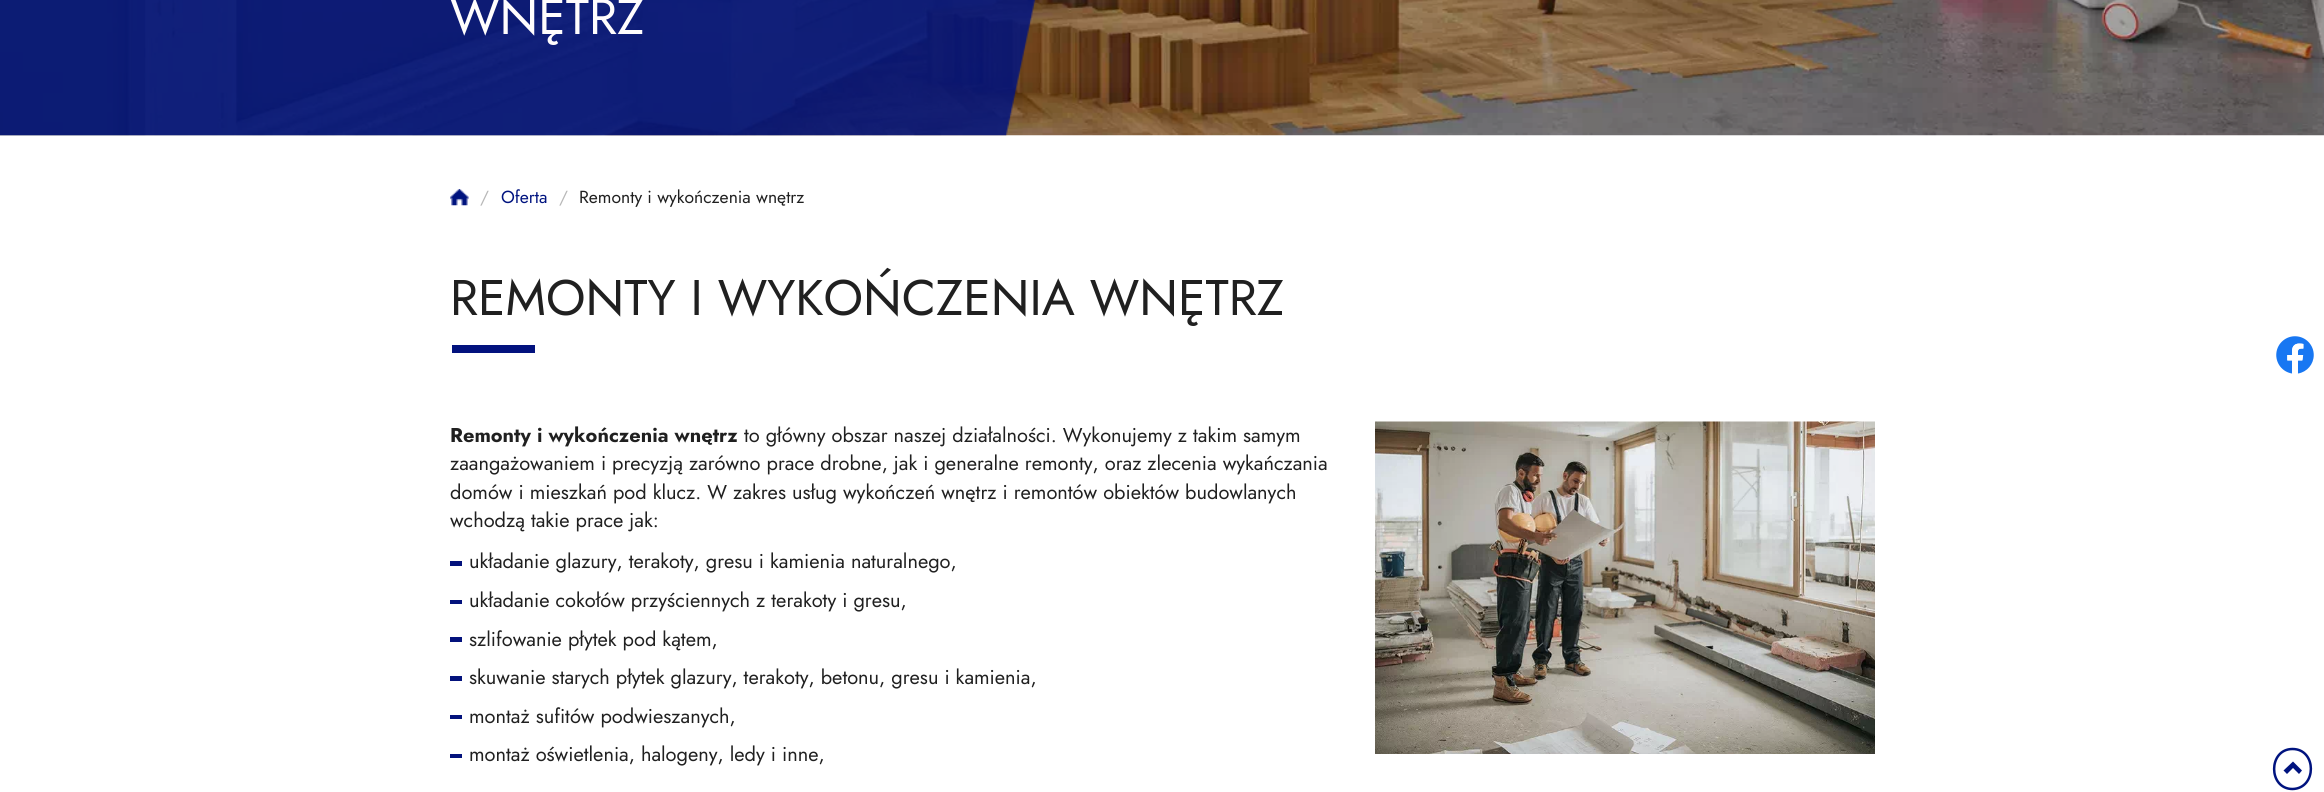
#include <cairo.h>
#include <math.h>
#include <stddef.h>

static cairo_t *ctx;

static void use_color(int r, int g, int b) {
    cairo_set_source_rgb(ctx, r / 255.0, g / 255.0, b / 255.0);
}

static void picture(const char *path, double x, double y, double w, double h) {
    cairo_surface_t *image = cairo_image_surface_create_from_png(path);
    cairo_save(ctx);
    cairo_set_source_surface(ctx, image, x, y);
    cairo_rectangle(ctx, x, y, w, h);
    cairo_fill(ctx);
    cairo_restore(ctx);
    cairo_surface_destroy(image);
}

int main(void) {
    cairo_surface_t *surface = cairo_image_surface_create(CAIRO_FORMAT_RGB24, 2324, 792);
    ctx = cairo_create(surface);
    cairo_font_options_t *options = cairo_font_options_create();
    cairo_font_options_set_hint_metrics(options, CAIRO_HINT_METRICS_OFF);
    cairo_font_options_set_hint_style(options, CAIRO_HINT_STYLE_NONE);
    cairo_set_font_options(ctx, options);
    cairo_set_miter_limit(ctx, 4);
    use_color(255, 255, 255);
    cairo_paint(ctx);
    picture("img2.png", 0, 0, 2324, 136);
    picture("img1.png", 0, 0, 1036, 136);
    cairo_select_font_face(ctx, "Jost", CAIRO_FONT_SLANT_NORMAL, CAIRO_FONT_WEIGHT_NORMAL);
    cairo_set_font_size(ctx, 50);
    use_color(255, 253, 253);
    cairo_move_to(ctx, 450, 34);
    cairo_show_text(ctx, "WNĘTRZ");
    picture("img3.png", 450, 189, 19, 17);
    cairo_set_font_size(ctx, 17.5);
    use_color(184, 184, 184);
    cairo_move_to(ctx, 480, 203);
    cairo_show_text(ctx, "/");
    use_color(0, 19, 127);
    cairo_move_to(ctx, 501, 203);
    cairo_show_text(ctx, "Oferta");
    use_color(184, 184, 184);
    cairo_move_to(ctx, 559, 203);
    cairo_show_text(ctx, "/");
    use_color(32, 32, 32);
    cairo_move_to(ctx, 579, 203);
    cairo_show_text(ctx, "Remonty i wykończenia wnętrz");
    cairo_set_font_size(ctx, 50);
    cairo_move_to(ctx, 450, 315);
    cairo_show_text(ctx, "REMONTY I WYKOŃCZENIA WNĘTRZ");
    use_color(2, 18, 126);
    cairo_rectangle(ctx, 452, 345, 83, 8);
    cairo_fill(ctx);
    cairo_select_font_face(ctx, "Jost", CAIRO_FONT_SLANT_NORMAL, CAIRO_FONT_WEIGHT_BOLD);
    cairo_set_font_size(ctx, 20);
    use_color(32, 32, 32);
    cairo_move_to(ctx, 450, 442);
    cairo_show_text(ctx, "Remonty i wykończenia wnętrz");
    cairo_select_font_face(ctx, "Jost", CAIRO_FONT_SLANT_NORMAL, CAIRO_FONT_WEIGHT_NORMAL);
    cairo_move_to(ctx, 744, 442);
    cairo_show_text(ctx, "to główny obszar naszej działalności. Wykonujemy z takim samym");
    picture("img4.png", 1375, 421, 500, 333);
    cairo_move_to(ctx, 450, 470);
    cairo_show_text(ctx, "zaangażowaniem i precyzją zarówno prace drobne, jak i generalne remonty, oraz zlecenia wykańczania");
    cairo_move_to(ctx, 450, 499);
    cairo_show_text(ctx, "domów i mieszkań pod klucz. W zakres usług wykończeń wnętrz i remontów obiektów budowlanych");
    cairo_move_to(ctx, 450, 527);
    cairo_show_text(ctx, "wchodzą takie prace jak:");
    use_color(3, 18, 124);
    cairo_rectangle(ctx, 450, 561, 12, 5);
    cairo_fill(ctx);
    use_color(32, 32, 32);
    cairo_move_to(ctx, 469, 568);
    cairo_show_text(ctx, "układanie glazury, terakoty, gresu i kamienia naturalnego,");
    use_color(3, 18, 124);
    cairo_rectangle(ctx, 450, 600, 12, 4);
    cairo_fill(ctx);
    use_color(32, 32, 32);
    cairo_move_to(ctx, 469, 607);
    cairo_show_text(ctx, "układanie cokołów przyściennych z terakoty i gresu,");
    use_color(3, 18, 124);
    cairo_rectangle(ctx, 450, 637, 12, 5);
    cairo_fill(ctx);
    use_color(32, 32, 32);
    cairo_move_to(ctx, 469, 646);
    cairo_show_text(ctx, "szlifowanie płytek pod kątem,");
    use_color(3, 18, 124);
    cairo_rectangle(ctx, 450, 676, 12, 5);
    cairo_fill(ctx);
    use_color(32, 32, 32);
    cairo_move_to(ctx, 469, 684);
    cairo_show_text(ctx, "skuwanie starych płytek glazury, terakoty, betonu, gresu i kamienia,");
    use_color(3, 18, 124);
    cairo_rectangle(ctx, 450, 715, 12, 4);
    cairo_fill(ctx);
    use_color(32, 32, 32);
    cairo_move_to(ctx, 469, 723);
    cairo_show_text(ctx, "montaż sufitów podwieszanych,");
    use_color(3, 18, 124);
    cairo_rectangle(ctx, 450, 754, 12, 4);
    cairo_fill(ctx);
    use_color(32, 32, 32);
    cairo_move_to(ctx, 469, 761);
    cairo_show_text(ctx, "montaż oświetlenia, halogeny, ledy i inne,");
    picture("img5.png", 2276, 336, 38, 38);
    cairo_new_path(ctx);
    cairo_move_to(ctx, 2292.5, 749);
    cairo_curve_to(ctx, 2317, 749, 2317, 788.5, 2292.5, 789);
    cairo_curve_to(ctx, 2268, 789, 2268, 749, 2292.5, 749);
    cairo_close_path(ctx);
    use_color(0, 19, 127);
    cairo_set_line_width(ctx, 2.5);
    cairo_stroke(ctx);
    cairo_new_path(ctx);
    cairo_move_to(ctx, 2302, 770.5);
    cairo_line_to(ctx, 2299, 774);
    cairo_line_to(ctx, 2293, 768);
    cairo_line_to(ctx, 2287, 774);
    cairo_line_to(ctx, 2283.5, 770.5);
    cairo_line_to(ctx, 2293, 761.5);
    cairo_close_path(ctx);
    cairo_fill(ctx);
    cairo_surface_write_to_png(surface, "result.png");
    cairo_font_options_destroy(options);
    cairo_destroy(ctx);
    cairo_surface_destroy(surface);
    return 0;
}
